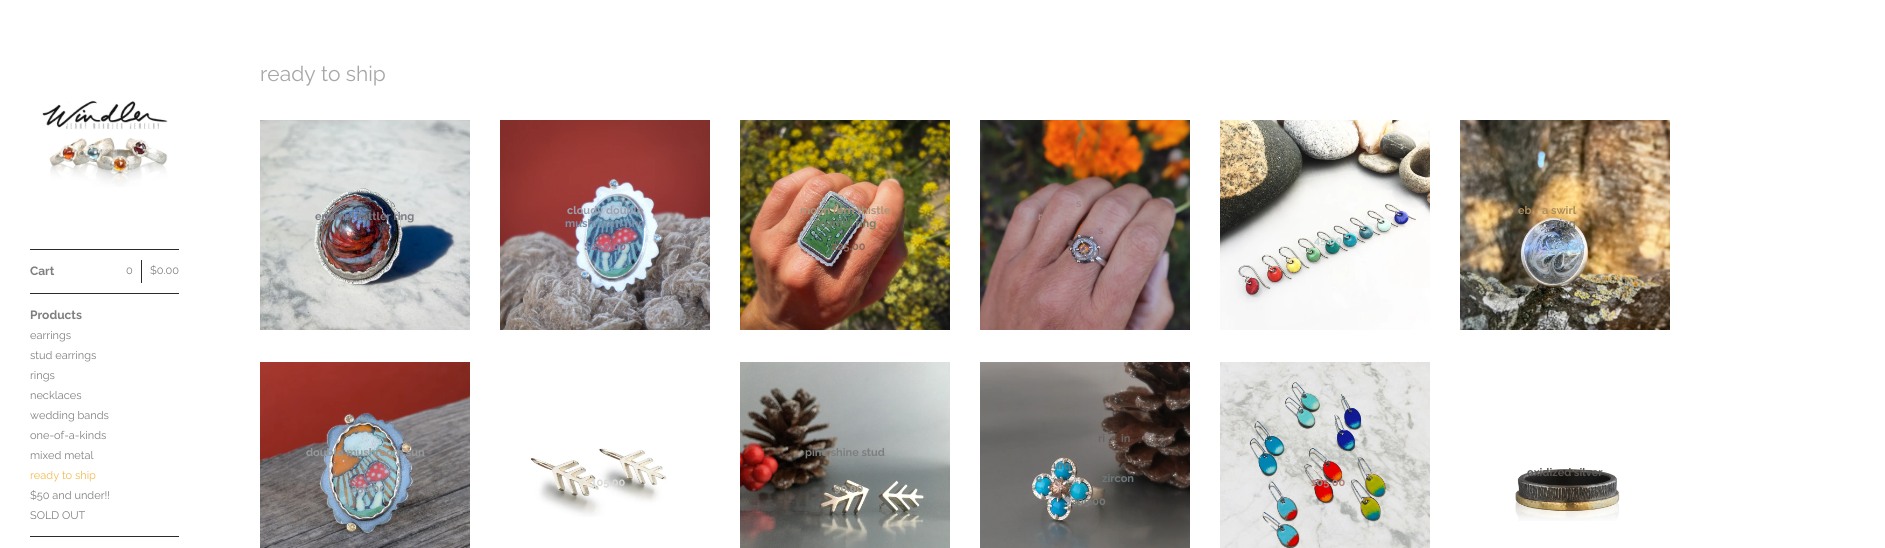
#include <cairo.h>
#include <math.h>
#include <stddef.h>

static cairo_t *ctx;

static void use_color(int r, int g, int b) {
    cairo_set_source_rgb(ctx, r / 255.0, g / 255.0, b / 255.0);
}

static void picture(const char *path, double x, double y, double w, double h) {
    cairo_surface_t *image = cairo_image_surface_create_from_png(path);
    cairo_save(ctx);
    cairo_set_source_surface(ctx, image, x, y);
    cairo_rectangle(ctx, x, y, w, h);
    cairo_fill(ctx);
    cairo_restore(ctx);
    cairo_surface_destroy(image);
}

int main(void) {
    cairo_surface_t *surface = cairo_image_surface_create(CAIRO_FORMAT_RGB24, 1885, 548);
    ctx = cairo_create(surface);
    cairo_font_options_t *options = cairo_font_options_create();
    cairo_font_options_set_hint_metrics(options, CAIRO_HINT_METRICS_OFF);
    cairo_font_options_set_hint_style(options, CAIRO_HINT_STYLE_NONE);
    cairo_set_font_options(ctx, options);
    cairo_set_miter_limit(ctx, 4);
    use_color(255, 255, 255);
    cairo_paint(ctx);
    picture("img1.png", 42, 100, 126, 87);
    use_color(43, 43, 43);
    cairo_rectangle(ctx, 30, 249, 149, 1);
    cairo_fill(ctx);
    cairo_select_font_face(ctx, "Raleway", CAIRO_FONT_SLANT_NORMAL, CAIRO_FONT_WEIGHT_BOLD);
    cairo_set_font_size(ctx, 12);
    use_color(125, 127, 125);
    cairo_move_to(ctx, 30, 275);
    cairo_show_text(ctx, "Cart");
    cairo_select_font_face(ctx, "Raleway", CAIRO_FONT_SLANT_NORMAL, CAIRO_FONT_WEIGHT_NORMAL);
    cairo_set_font_size(ctx, 11);
    cairo_move_to(ctx, 126, 274);
    cairo_show_text(ctx, "0");
    use_color(43, 43, 43);
    cairo_rectangle(ctx, 141, 260, 1, 23);
    cairo_fill(ctx);
    use_color(125, 127, 125);
    cairo_move_to(ctx, 150, 274);
    cairo_show_text(ctx, "$0.00");
    use_color(43, 43, 43);
    cairo_rectangle(ctx, 30, 293, 149, 1);
    cairo_fill(ctx);
    cairo_select_font_face(ctx, "Raleway", CAIRO_FONT_SLANT_NORMAL, CAIRO_FONT_WEIGHT_BOLD);
    cairo_set_font_size(ctx, 12);
    use_color(125, 127, 125);
    cairo_move_to(ctx, 30, 319);
    cairo_show_text(ctx, "Products");
    cairo_select_font_face(ctx, "Raleway", CAIRO_FONT_SLANT_NORMAL, CAIRO_FONT_WEIGHT_NORMAL);
    cairo_set_font_size(ctx, 11);
    cairo_move_to(ctx, 30, 339);
    cairo_show_text(ctx, "earrings");
    cairo_move_to(ctx, 30, 359);
    cairo_show_text(ctx, "stud earrings");
    cairo_move_to(ctx, 30, 379);
    cairo_show_text(ctx, "rings");
    cairo_move_to(ctx, 30, 399);
    cairo_show_text(ctx, "necklaces");
    cairo_move_to(ctx, 30, 419);
    cairo_show_text(ctx, "wedding bands");
    cairo_move_to(ctx, 30, 439);
    cairo_show_text(ctx, "one-of-a-kinds");
    cairo_move_to(ctx, 30, 459);
    cairo_show_text(ctx, "mixed metal");
    use_color(242, 185, 80);
    cairo_move_to(ctx, 30, 479);
    cairo_show_text(ctx, "ready to ship");
    use_color(125, 127, 125);
    cairo_move_to(ctx, 30, 499);
    cairo_show_text(ctx, "$50 and under!!");
    cairo_move_to(ctx, 30, 519);
    cairo_show_text(ctx, "SOLD OUT");
    use_color(43, 43, 43);
    cairo_rectangle(ctx, 30, 536, 149, 1);
    cairo_fill(ctx);
    cairo_set_font_size(ctx, 21);
    use_color(168, 166, 166);
    cairo_move_to(ctx, 260, 81);
    cairo_show_text(ctx, "ready to ship");
    picture("img2.png", 260, 120, 210, 210);
    cairo_select_font_face(ctx, "Raleway", CAIRO_FONT_SLANT_NORMAL, CAIRO_FONT_WEIGHT_BOLD);
    cairo_set_font_size(ctx, 11);
    use_color(124, 123, 135);
    cairo_move_to(ctx, 315, 220);
    cairo_show_text(ctx, "enamel rattler ring");
    picture("img3.png", 500, 120, 210, 210);
    use_color(158, 161, 176);
    cairo_move_to(ctx, 567, 214);
    cairo_show_text(ctx, "cloudy double");
    use_color(127, 143, 165);
    cairo_move_to(ctx, 565, 227);
    cairo_show_text(ctx, "mushroom ring");
    use_color(125, 149, 177);
    cairo_move_to(ctx, 584, 250);
    cairo_show_text(ctx, "$");
    use_color(152, 122, 146);
    cairo_move_to(ctx, 591, 250);
    cairo_show_text(ctx, "250.00");
    picture("img4.png", 740, 120, 210, 210);
    use_color(173, 147, 123);
    cairo_move_to(ctx, 800, 214);
    cairo_show_text(ctx, "moon fern thistle");
    use_color(118, 128, 103);
    cairo_move_to(ctx, 813, 227);
    cairo_show_text(ctx, "enamel ring");
    use_color(138, 107, 92);
    cairo_move_to(ctx, 831, 250);
    cairo_show_text(ctx, "225.00");
    picture("img5.png", 980, 120, 210, 210);
    use_color(163, 130, 131);
    cairo_move_to(ctx, 1076, 207);
    cairo_show_text(ctx, "s");
    use_color(169, 136, 137);
    cairo_move_to(ctx, 1038, 220);
    cairo_show_text(ctx, "r");
    use_color(152, 115, 115);
    cairo_move_to(ctx, 1098, 234);
    cairo_show_text(ctx, "s");
    use_color(135, 124, 132);
    cairo_move_to(ctx, 1071, 257);
    cairo_show_text(ctx, "335.00");
    picture("img6.png", 1460, 120, 210, 210);
    use_color(173, 140, 90);
    cairo_move_to(ctx, 1518, 214);
    cairo_show_text(ctx, "eb");
    cairo_move_to(ctx, 1542, 214);
    cairo_show_text(ctx, "a swirl");
    use_color(133, 130, 122);
    cairo_move_to(ctx, 1555, 227);
    cairo_show_text(ctx, "ring");
    use_color(161, 192, 220);
    cairo_move_to(ctx, 1551, 250);
    cairo_show_text(ctx, "195.00");
    picture("img7.png", 1220, 120, 210, 210);
    use_color(198, 213, 208);
    cairo_move_to(ctx, 1314, 244);
    cairo_show_text(ctx, "45.00");
    picture("img8.png", 260, 362, 210, 186);
    use_color(148, 153, 153);
    cairo_move_to(ctx, 306, 456);
    cairo_show_text(ctx, "double mushroom sun");
    use_color(149, 154, 164);
    cairo_move_to(ctx, 351, 492);
    cairo_show_text(ctx, "250.00");
    picture("img9.png", 740, 362, 210, 186);
    use_color(125, 127, 125);
    cairo_move_to(ctx, 805, 456);
    cairo_show_text(ctx, "pine shine stud");
    use_color(166, 162, 149);
    cairo_move_to(ctx, 834, 492);
    cairo_show_text(ctx, "90.00");
    picture("img10.png", 980, 362, 210, 186);
    use_color(108, 100, 97);
    cairo_move_to(ctx, 1098, 442);
    cairo_show_text(ctx, "ri");
    cairo_move_to(ctx, 1121, 442);
    cairo_show_text(ctx, "in");
    use_color(100, 121, 126);
    cairo_move_to(ctx, 1053, 469);
    cairo_show_text(ctx, "urq");
    use_color(108, 121, 122);
    cairo_move_to(ctx, 1036, 482);
    cairo_show_text(ctx, "c");
    cairo_move_to(ctx, 1102, 482);
    cairo_show_text(ctx, "zircon");
    use_color(149, 154, 164);
    cairo_move_to(ctx, 1064, 505);
    cairo_show_text(ctx, "$");
    use_color(120, 122, 119);
    cairo_move_to(ctx, 1071, 505);
    cairo_show_text(ctx, "395.00");
    picture("img11.png", 1220, 362, 210, 186);
    use_color(198, 198, 194);
    cairo_move_to(ctx, 1285, 462);
    cairo_show_text(ctx, "s");
    use_color(181, 126, 122);
    cairo_move_to(ctx, 1311, 486);
    cairo_show_text(ctx, "105.00");
    picture("img12.png", 1515, 469, 105, 52);
    use_color(89, 87, 84);
    cairo_move_to(ctx, 1527, 476);
    cairo_show_text(ctx, "oxidized silver");
    picture("img13.png", 530, 448, 137, 69);
    use_color(218, 218, 216);
    cairo_move_to(ctx, 591, 486);
    cairo_show_text(ctx, "105.00");
    cairo_surface_write_to_png(surface, "result.png");
    cairo_font_options_destroy(options);
    cairo_destroy(ctx);
    cairo_surface_destroy(surface);
    return 0;
}
